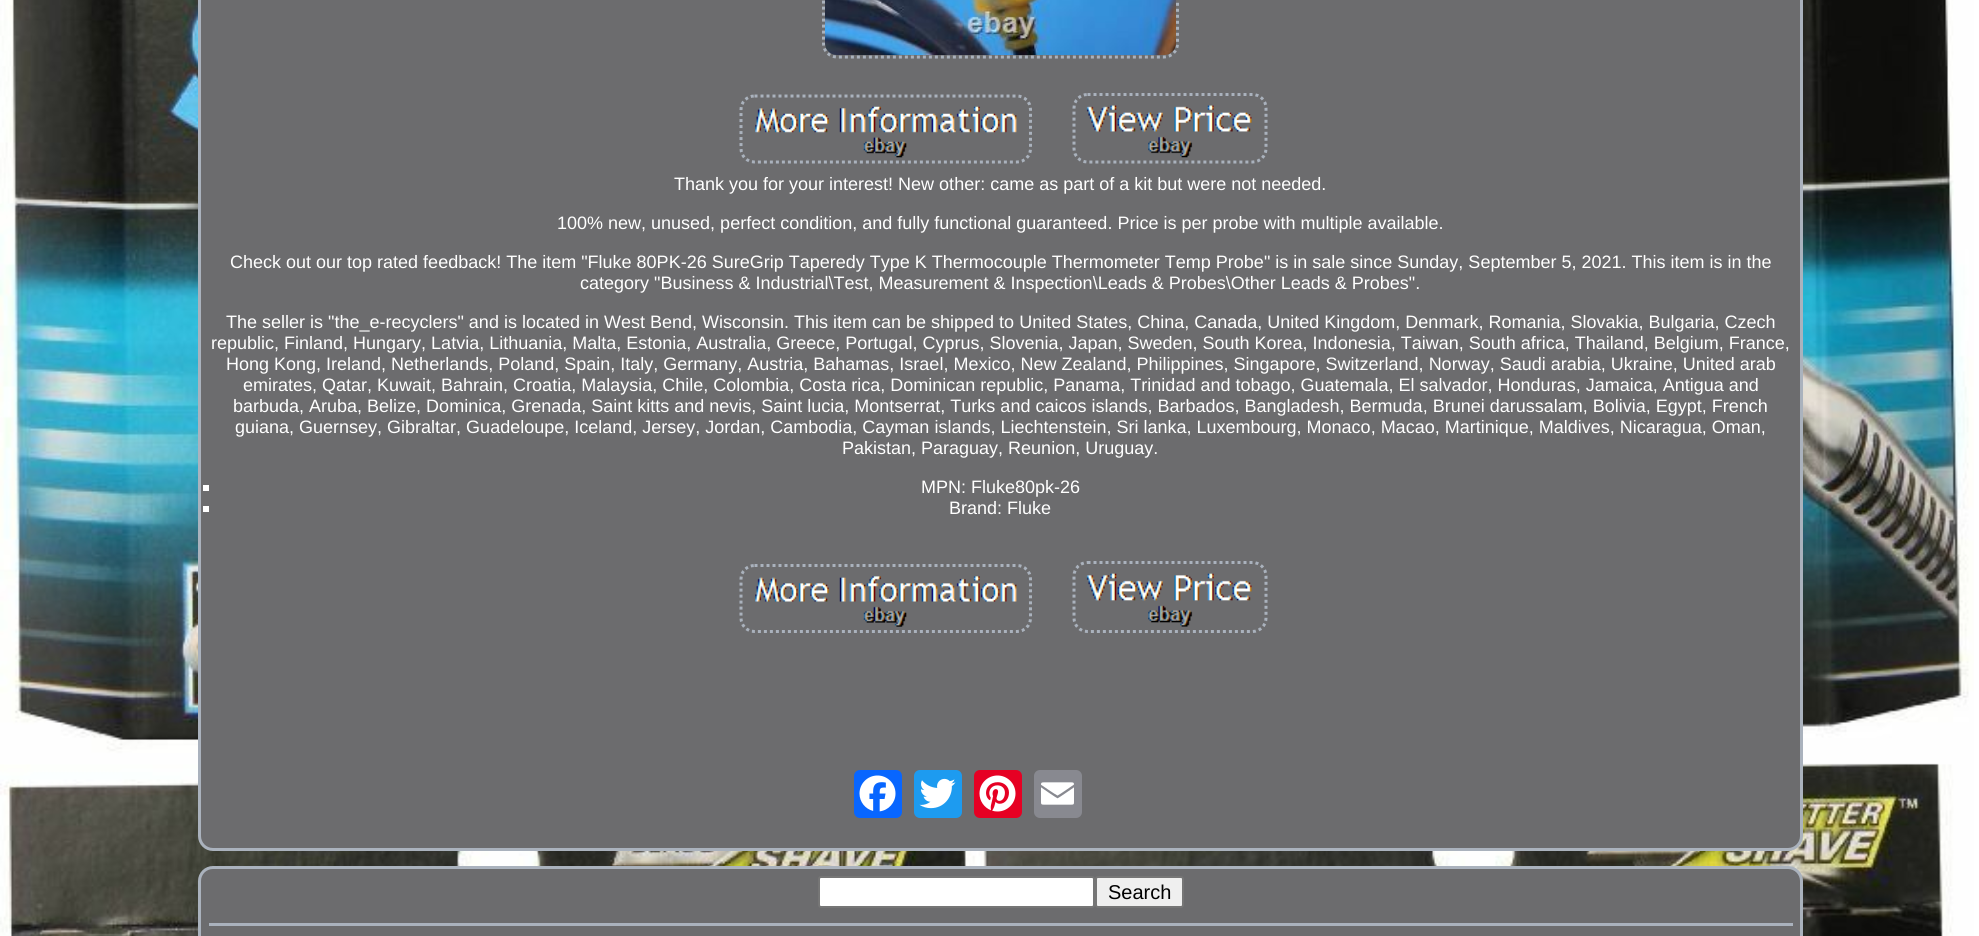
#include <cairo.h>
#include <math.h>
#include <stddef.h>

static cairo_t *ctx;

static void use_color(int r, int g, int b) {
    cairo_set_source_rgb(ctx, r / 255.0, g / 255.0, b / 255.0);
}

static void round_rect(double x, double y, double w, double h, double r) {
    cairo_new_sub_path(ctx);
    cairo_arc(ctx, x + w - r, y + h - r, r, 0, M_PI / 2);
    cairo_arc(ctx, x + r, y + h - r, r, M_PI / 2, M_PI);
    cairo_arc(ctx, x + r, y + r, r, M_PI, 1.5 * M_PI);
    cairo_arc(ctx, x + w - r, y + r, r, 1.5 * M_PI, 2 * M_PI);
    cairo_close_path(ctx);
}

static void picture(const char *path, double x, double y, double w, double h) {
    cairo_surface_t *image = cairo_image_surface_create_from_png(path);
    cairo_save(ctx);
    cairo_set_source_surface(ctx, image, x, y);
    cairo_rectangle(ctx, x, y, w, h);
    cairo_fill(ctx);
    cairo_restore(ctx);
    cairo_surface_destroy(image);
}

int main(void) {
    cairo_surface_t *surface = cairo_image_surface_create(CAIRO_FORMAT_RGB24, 1979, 936);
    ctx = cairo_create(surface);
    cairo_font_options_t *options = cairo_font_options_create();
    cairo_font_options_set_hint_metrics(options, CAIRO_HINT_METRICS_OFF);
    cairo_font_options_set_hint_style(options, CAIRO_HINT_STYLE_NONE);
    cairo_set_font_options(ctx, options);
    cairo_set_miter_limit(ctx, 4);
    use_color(255, 255, 255);
    cairo_paint(ctx);
    picture("img1.png", 0, 0, 1974, 936);
    use_color(108, 108, 110);
    round_rect(199.5, -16.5, 1602, 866, 13.5);
    cairo_fill_preserve(ctx);
    use_color(170, 178, 189);
    cairo_set_line_width(ctx, 3);
    cairo_stroke(ctx);
    cairo_new_path(ctx);
    cairo_move_to(ctx, 837, -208.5);
    cairo_line_to(ctx, 1164, -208.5);
    cairo_curve_to(ctx, 1171.5, -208.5, 1177.5, -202.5, 1177.5, -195);
    cairo_line_to(ctx, 1177.5, 43.5);
    cairo_curve_to(ctx, 1177.5, 51, 1171.5, 57, 1164, 57);
    cairo_line_to(ctx, 837, 57);
    cairo_curve_to(ctx, 829.5, 57, 823.5, 51, 823.5, 43.5);
    cairo_line_to(ctx, 823.5, -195);
    cairo_curve_to(ctx, 823.5, -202.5, 829.5, -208.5, 837, -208.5);
    cairo_close_path(ctx);
    cairo_set_dash(ctx, (double[]){3, 3}, 2, 0);
    cairo_stroke(ctx);
    picture("img2.png", 825, 0, 351, 55);
    cairo_new_path(ctx);
    cairo_move_to(ctx, 754.5, 96);
    cairo_line_to(ctx, 1017, 96);
    cairo_curve_to(ctx, 1024.5, 96, 1030.5, 102, 1030.5, 109.5);
    cairo_line_to(ctx, 1030.5, 148.5);
    cairo_curve_to(ctx, 1030.5, 156, 1024.5, 162, 1017, 162);
    cairo_line_to(ctx, 754.5, 162);
    cairo_curve_to(ctx, 747, 162, 741, 156, 741, 148.5);
    cairo_line_to(ctx, 741, 109.5);
    cairo_curve_to(ctx, 741, 102, 747, 96, 754.5, 96);
    cairo_close_path(ctx);
    cairo_stroke(ctx);
    picture("img3.png", 755, 106, 262, 52);
    cairo_new_path(ctx);
    cairo_move_to(ctx, 1087.5, 94.5);
    cairo_line_to(ctx, 1252.5, 94.5);
    cairo_curve_to(ctx, 1260, 94.5, 1266, 100.5, 1266, 108);
    cairo_line_to(ctx, 1266, 148.5);
    cairo_curve_to(ctx, 1266, 156, 1260, 162, 1252.5, 162);
    cairo_line_to(ctx, 1087.5, 162);
    cairo_curve_to(ctx, 1080, 162, 1074, 156, 1074, 148.5);
    cairo_line_to(ctx, 1074, 108);
    cairo_curve_to(ctx, 1074, 100.5, 1080, 94.5, 1087.5, 94.5);
    cairo_close_path(ctx);
    cairo_stroke(ctx);
    picture("img4.png", 1086, 105, 166, 53);
    cairo_select_font_face(ctx, "Liberation Sans", CAIRO_FONT_SLANT_NORMAL, CAIRO_FONT_WEIGHT_NORMAL);
    cairo_set_font_size(ctx, 18);
    use_color(255, 255, 255);
    cairo_move_to(ctx, 674, 190);
    cairo_show_text(ctx, "Thank you for your interest! New other: came as part of a kit but were not needed.");
    cairo_move_to(ctx, 557, 229);
    cairo_show_text(ctx, "100% new, unused, perfect condition, and fully functional guaranteed. Price is per probe with multiple available.");
    cairo_move_to(ctx, 230, 268);
    cairo_show_text(ctx, "Check out our top rated feedback! The item \"Fluke 80PK-26 SureGrip Taperedy Type K Thermocouple Thermometer Temp Probe\" is in sale since Sunday, September 5, 2021. This item is in the");
    cairo_move_to(ctx, 580, 289);
    cairo_show_text(ctx, "category \"Business & Industrial\\Test, Measurement & Inspection\\Leads & Probes\\Other Leads & Probes\".");
    cairo_move_to(ctx, 226, 328);
    cairo_show_text(ctx, "The seller is \"the_e-recyclers\" and is located in West Bend, Wisconsin. This item can be shipped to United States, China, Canada, United Kingdom, Denmark, Romania, Slovakia, Bulgaria, Czech");
    cairo_move_to(ctx, 211, 349);
    cairo_show_text(ctx, "republic, Finland, Hungary, Latvia, Lithuania, Malta, Estonia, Australia, Greece, Portugal, Cyprus, Slovenia, Japan, Sweden, South Korea, Indonesia, Taiwan, South africa, Thailand, Belgium, France,");
    cairo_move_to(ctx, 226, 370);
    cairo_show_text(ctx, "Hong Kong, Ireland, Netherlands, Poland, Spain, Italy, Germany, Austria, Bahamas, Israel, Mexico, New Zealand, Philippines, Singapore, Switzerland, Norway, Saudi arabia, Ukraine, United arab");
    cairo_move_to(ctx, 243, 391);
    cairo_show_text(ctx, "emirates, Qatar, Kuwait, Bahrain, Croatia, Malaysia, Chile, Colombia, Costa rica, Dominican republic, Panama, Trinidad and tobago, Guatemala, El salvador, Honduras, Jamaica, Antigua and");
    cairo_move_to(ctx, 233, 412);
    cairo_show_text(ctx, "barbuda, Aruba, Belize, Dominica, Grenada, Saint kitts and nevis, Saint lucia, Montserrat, Turks and caicos islands, Barbados, Bangladesh, Bermuda, Brunei darussalam, Bolivia, Egypt, French");
    cairo_move_to(ctx, 235, 433);
    cairo_show_text(ctx, "guiana, Guernsey, Gibraltar, Guadeloupe, Iceland, Jersey, Jordan, Cambodia, Cayman islands, Liechtenstein, Sri lanka, Luxembourg, Monaco, Macao, Martinique, Maldives, Nicaragua, Oman,");
    cairo_move_to(ctx, 842, 454);
    cairo_show_text(ctx, "Pakistan, Paraguay, Reunion, Uruguay.");
    cairo_rectangle(ctx, 203, 485, 6, 6);
    cairo_fill(ctx);
    cairo_move_to(ctx, 921, 493);
    cairo_show_text(ctx, "MPN: Fluke80pk-26");
    cairo_rectangle(ctx, 203, 506, 6, 6);
    cairo_fill(ctx);
    cairo_move_to(ctx, 949, 514);
    cairo_show_text(ctx, "Brand: Fluke");
    cairo_new_path(ctx);
    cairo_move_to(ctx, 754.5, 565.5);
    cairo_line_to(ctx, 1017, 565.5);
    cairo_curve_to(ctx, 1024.5, 565.5, 1030.5, 571.5, 1030.5, 579);
    cairo_line_to(ctx, 1030.5, 618);
    cairo_curve_to(ctx, 1030.5, 625.5, 1024.5, 631.5, 1017, 631.5);
    cairo_line_to(ctx, 754.5, 631.5);
    cairo_curve_to(ctx, 747, 631.5, 741, 625.5, 741, 618);
    cairo_line_to(ctx, 741, 579);
    cairo_curve_to(ctx, 741, 571.5, 747, 565.5, 754.5, 565.5);
    cairo_close_path(ctx);
    use_color(170, 178, 189);
    cairo_stroke(ctx);
    picture("img5.png", 755, 576, 262, 51);
    cairo_new_path(ctx);
    cairo_move_to(ctx, 1087.5, 562.5);
    cairo_line_to(ctx, 1252.5, 562.5);
    cairo_curve_to(ctx, 1260, 562.5, 1266, 568.5, 1266, 576);
    cairo_line_to(ctx, 1266, 618);
    cairo_curve_to(ctx, 1266, 625.5, 1260, 631.5, 1252.5, 631.5);
    cairo_line_to(ctx, 1087.5, 631.5);
    cairo_curve_to(ctx, 1080, 631.5, 1074, 625.5, 1074, 618);
    cairo_line_to(ctx, 1074, 576);
    cairo_curve_to(ctx, 1074, 568.5, 1080, 562.5, 1087.5, 562.5);
    cairo_close_path(ctx);
    cairo_stroke(ctx);
    picture("img6.png", 1086, 573, 166, 54);
    use_color(8, 102, 255);
    round_rect(854, 770, 48, 48, 6);
    cairo_fill(ctx);
    picture("img7.png", 859, 775, 37, 37);
    use_color(29, 155, 240);
    round_rect(914, 770, 48, 48, 6);
    cairo_fill(ctx);
    picture("img8.png", 919, 778, 37, 31);
    use_color(230, 0, 35);
    round_rect(974, 770, 48, 48, 6);
    cairo_fill(ctx);
    picture("img9.png", 979, 775, 37, 37);
    use_color(136, 137, 144);
    round_rect(1034, 770, 48, 48, 6);
    cairo_fill(ctx);
    picture("img10.png", 1041, 782, 33, 23);
    use_color(108, 108, 110);
    round_rect(199.5, 867.5, 1602, 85, 13.5);
    cairo_fill_preserve(ctx);
    use_color(170, 178, 189);
    cairo_set_dash(ctx, NULL, 0, 0);
    cairo_stroke(ctx);
    use_color(255, 255, 255);
    round_rect(819, 877, 275, 30, 2);
    cairo_fill_preserve(ctx);
    use_color(118, 118, 118);
    cairo_set_line_width(ctx, 2);
    cairo_stroke(ctx);
    use_color(239, 239, 239);
    round_rect(1096, 877, 87, 30, 2);
    cairo_fill_preserve(ctx);
    use_color(118, 118, 118);
    cairo_stroke(ctx);
    cairo_set_font_size(ctx, 20);
    use_color(0, 0, 0);
    cairo_move_to(ctx, 1108, 899);
    cairo_show_text(ctx, "Search");
    use_color(170, 178, 189);
    cairo_rectangle(ctx, 209, 923, 1584, 3);
    cairo_fill(ctx);
    cairo_surface_write_to_png(surface, "result.png");
    cairo_font_options_destroy(options);
    cairo_destroy(ctx);
    cairo_surface_destroy(surface);
    return 0;
}
